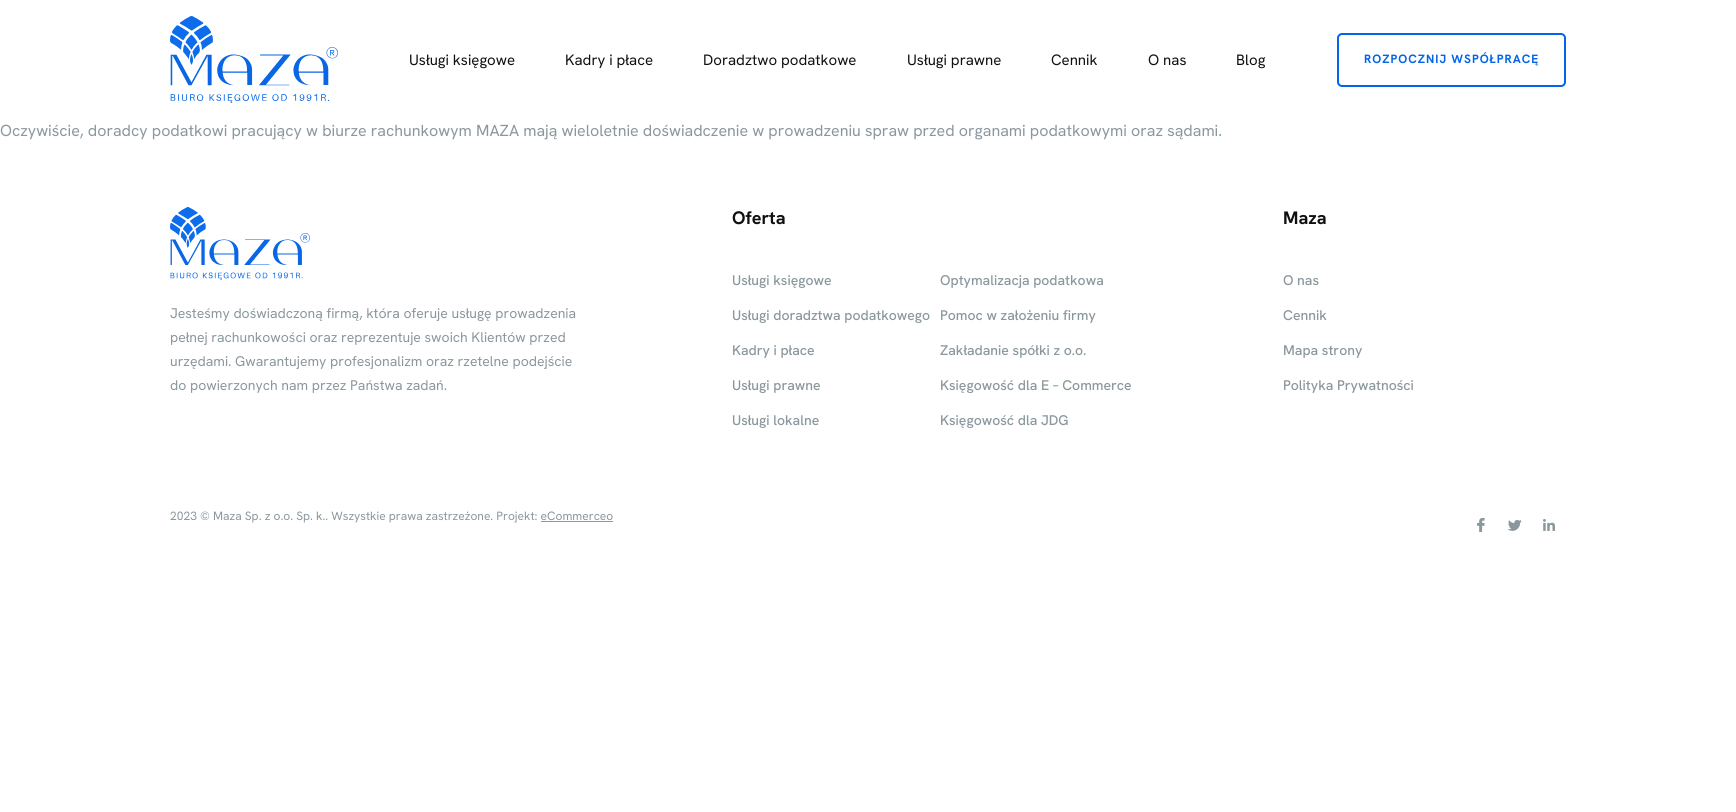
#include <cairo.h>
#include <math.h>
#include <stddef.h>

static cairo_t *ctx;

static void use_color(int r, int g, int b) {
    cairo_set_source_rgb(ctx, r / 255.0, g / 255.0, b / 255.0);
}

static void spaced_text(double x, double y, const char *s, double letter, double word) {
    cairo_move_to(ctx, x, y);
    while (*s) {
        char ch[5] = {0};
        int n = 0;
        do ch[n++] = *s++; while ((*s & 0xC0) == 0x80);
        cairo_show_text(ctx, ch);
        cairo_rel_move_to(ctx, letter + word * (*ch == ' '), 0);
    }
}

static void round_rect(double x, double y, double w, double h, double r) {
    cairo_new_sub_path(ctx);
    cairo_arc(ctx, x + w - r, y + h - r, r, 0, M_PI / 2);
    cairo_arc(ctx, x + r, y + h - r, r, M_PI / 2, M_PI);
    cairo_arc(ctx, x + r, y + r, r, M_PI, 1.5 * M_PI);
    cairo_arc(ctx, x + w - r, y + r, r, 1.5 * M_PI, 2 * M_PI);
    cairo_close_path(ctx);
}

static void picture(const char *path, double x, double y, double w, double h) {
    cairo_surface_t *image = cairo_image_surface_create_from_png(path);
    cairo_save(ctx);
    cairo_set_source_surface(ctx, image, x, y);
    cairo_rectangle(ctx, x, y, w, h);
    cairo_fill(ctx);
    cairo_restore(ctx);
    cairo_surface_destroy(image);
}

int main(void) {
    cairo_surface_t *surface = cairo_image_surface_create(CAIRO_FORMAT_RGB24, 1736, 812);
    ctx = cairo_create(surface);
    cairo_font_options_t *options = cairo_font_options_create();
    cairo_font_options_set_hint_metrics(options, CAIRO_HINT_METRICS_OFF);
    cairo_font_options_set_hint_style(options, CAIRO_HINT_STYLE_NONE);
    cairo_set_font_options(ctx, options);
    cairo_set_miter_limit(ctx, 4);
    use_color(255, 255, 255);
    cairo_paint(ctx);
    picture("img1.png", 170, 16, 168, 87);
    cairo_select_font_face(ctx, "Hanken Grotesk", CAIRO_FONT_SLANT_NORMAL, CAIRO_FONT_WEIGHT_NORMAL);
    cairo_set_font_size(ctx, 15);
    use_color(16, 16, 16);
    cairo_move_to(ctx, 409, 65);
    cairo_show_text(ctx, "Usługi księgowe");
    cairo_move_to(ctx, 565, 65);
    cairo_show_text(ctx, "Kadry i płace");
    cairo_move_to(ctx, 703, 65);
    cairo_show_text(ctx, "Doradztwo podatkowe");
    cairo_move_to(ctx, 907, 65);
    cairo_show_text(ctx, "Usługi prawne");
    cairo_move_to(ctx, 1051, 65);
    cairo_show_text(ctx, "Cennik");
    cairo_move_to(ctx, 1148, 65);
    cairo_show_text(ctx, "O nas");
    cairo_move_to(ctx, 1236, 65);
    cairo_show_text(ctx, "Blog");
    round_rect(1338, 34, 227, 52, 4);
    use_color(2, 101, 232);
    cairo_stroke(ctx);
    cairo_select_font_face(ctx, "Hanken Grotesk", CAIRO_FONT_SLANT_NORMAL, CAIRO_FONT_WEIGHT_BOLD);
    cairo_set_font_size(ctx, 12);
    spaced_text(1364, 63, "ROZPOCZNIJ WSPÓŁPRACĘ", 1, 0);
    cairo_select_font_face(ctx, "Hanken Grotesk", CAIRO_FONT_SLANT_NORMAL, CAIRO_FONT_WEIGHT_NORMAL);
    cairo_set_font_size(ctx, 16);
    use_color(138, 151, 157);
    cairo_move_to(ctx, 0, 136);
    cairo_show_text(ctx, "Oczywiście, doradcy podatkowi pracujący w biurze rachunkowym MAZA mają wieloletnie doświadczenie w prowadzeniu spraw przed organami podatkowymi oraz sądami.");
    picture("img2.png", 170, 207, 140, 73);
    cairo_set_font_size(ctx, 14);
    cairo_move_to(ctx, 170, 318);
    cairo_show_text(ctx, "Jesteśmy doświadczoną firmą, która oferuje usługę prowadzenia");
    cairo_move_to(ctx, 170, 342);
    cairo_show_text(ctx, "pełnej rachunkowości oraz reprezentuje swoich Klientów przed");
    cairo_move_to(ctx, 170, 366);
    cairo_show_text(ctx, "urzędami. Gwarantujemy profesjonalizm oraz rzetelne podejście");
    cairo_move_to(ctx, 170, 390);
    cairo_show_text(ctx, "do powierzonych nam przez Państwa zadań.");
    cairo_select_font_face(ctx, "Hanken Grotesk", CAIRO_FONT_SLANT_NORMAL, CAIRO_FONT_WEIGHT_BOLD);
    cairo_set_font_size(ctx, 18);
    use_color(16, 16, 16);
    cairo_move_to(ctx, 732, 224);
    cairo_show_text(ctx, "Oferta");
    cairo_select_font_face(ctx, "Hanken Grotesk Medium", CAIRO_FONT_SLANT_NORMAL, CAIRO_FONT_WEIGHT_NORMAL);
    cairo_set_font_size(ctx, 14);
    use_color(138, 151, 157);
    cairo_move_to(ctx, 732, 285);
    cairo_show_text(ctx, "Usługi księgowe");
    cairo_move_to(ctx, 732, 320);
    cairo_show_text(ctx, "Usługi doradztwa podatkowego");
    cairo_move_to(ctx, 732, 355);
    cairo_show_text(ctx, "Kadry i płace");
    cairo_move_to(ctx, 732, 390);
    cairo_show_text(ctx, "Usługi prawne");
    cairo_move_to(ctx, 732, 425);
    cairo_show_text(ctx, "Usługi lokalne");
    cairo_move_to(ctx, 940, 285);
    cairo_show_text(ctx, "Optymalizacja podatkowa");
    cairo_move_to(ctx, 940, 320);
    cairo_show_text(ctx, "Pomoc w założeniu firmy");
    cairo_move_to(ctx, 940, 355);
    cairo_show_text(ctx, "Zakładanie spółki z o.o.");
    cairo_move_to(ctx, 940, 390);
    cairo_show_text(ctx, "Księgowość dla E – Commerce");
    cairo_move_to(ctx, 940, 425);
    cairo_show_text(ctx, "Księgowość dla JDG");
    cairo_select_font_face(ctx, "Hanken Grotesk", CAIRO_FONT_SLANT_NORMAL, CAIRO_FONT_WEIGHT_BOLD);
    cairo_set_font_size(ctx, 18);
    use_color(16, 16, 16);
    cairo_move_to(ctx, 1283, 224);
    cairo_show_text(ctx, "Maza");
    cairo_select_font_face(ctx, "Hanken Grotesk Medium", CAIRO_FONT_SLANT_NORMAL, CAIRO_FONT_WEIGHT_NORMAL);
    cairo_set_font_size(ctx, 14);
    use_color(138, 151, 157);
    cairo_move_to(ctx, 1283, 285);
    cairo_show_text(ctx, "O nas");
    cairo_move_to(ctx, 1283, 320);
    cairo_show_text(ctx, "Cennik");
    cairo_move_to(ctx, 1283, 355);
    cairo_show_text(ctx, "Mapa strony");
    cairo_move_to(ctx, 1283, 390);
    cairo_show_text(ctx, "Polityka Prywatności");
    cairo_select_font_face(ctx, "Hanken Grotesk", CAIRO_FONT_SLANT_NORMAL, CAIRO_FONT_WEIGHT_NORMAL);
    cairo_set_font_size(ctx, 12);
    cairo_move_to(ctx, 170, 520);
    cairo_show_text(ctx, "2023 © Maza Sp. z o.o. Sp. k.. Wszystkie prawa zastrzeżone. Projekt: eCommerceo");
    cairo_rectangle(ctx, 541, 521, 72, 1);
    cairo_fill(ctx);
    picture("img3.png", 1477, 517, 8, 15);
    picture("img4.png", 1508, 520, 14, 11);
    picture("img5.png", 1543, 519, 12, 12);
    cairo_surface_write_to_png(surface, "result.png");
    cairo_font_options_destroy(options);
    cairo_destroy(ctx);
    cairo_surface_destroy(surface);
    return 0;
}
